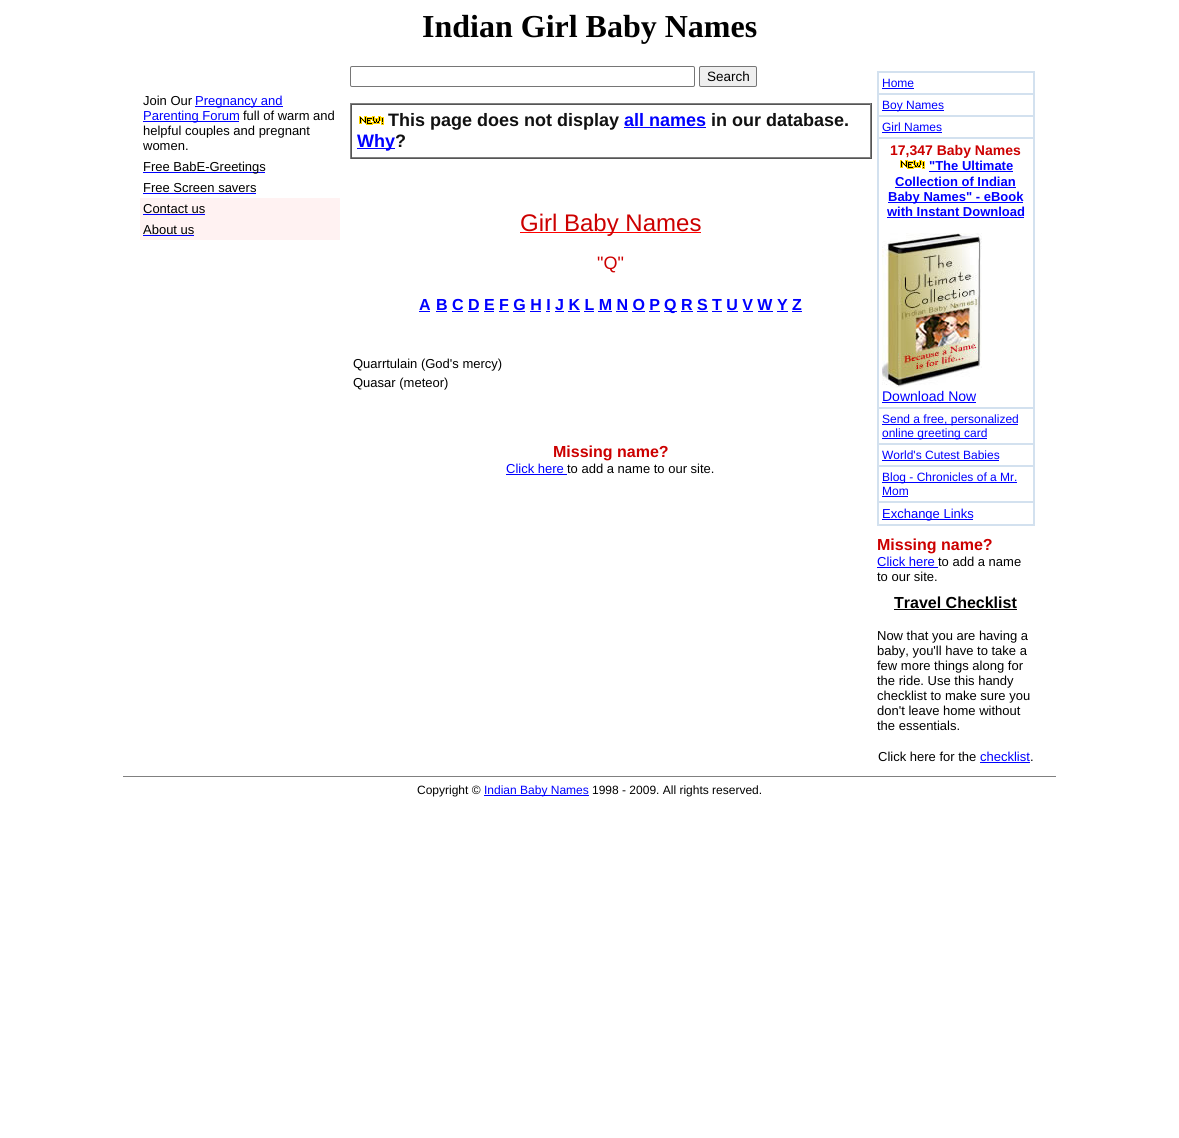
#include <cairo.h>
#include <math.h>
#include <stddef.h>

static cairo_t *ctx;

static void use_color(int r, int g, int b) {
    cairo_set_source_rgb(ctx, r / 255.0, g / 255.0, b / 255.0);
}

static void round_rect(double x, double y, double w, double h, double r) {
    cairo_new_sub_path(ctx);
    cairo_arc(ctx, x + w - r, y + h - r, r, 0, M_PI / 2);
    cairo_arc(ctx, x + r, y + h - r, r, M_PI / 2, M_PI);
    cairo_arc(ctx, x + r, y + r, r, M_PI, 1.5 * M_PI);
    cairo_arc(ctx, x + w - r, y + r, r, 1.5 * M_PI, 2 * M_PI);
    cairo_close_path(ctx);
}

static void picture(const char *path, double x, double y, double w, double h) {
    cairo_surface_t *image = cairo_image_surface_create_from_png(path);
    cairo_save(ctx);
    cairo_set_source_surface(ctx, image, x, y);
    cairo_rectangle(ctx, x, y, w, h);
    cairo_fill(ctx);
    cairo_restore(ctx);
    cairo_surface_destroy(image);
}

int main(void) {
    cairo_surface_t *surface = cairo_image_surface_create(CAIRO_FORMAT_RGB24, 1179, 1138);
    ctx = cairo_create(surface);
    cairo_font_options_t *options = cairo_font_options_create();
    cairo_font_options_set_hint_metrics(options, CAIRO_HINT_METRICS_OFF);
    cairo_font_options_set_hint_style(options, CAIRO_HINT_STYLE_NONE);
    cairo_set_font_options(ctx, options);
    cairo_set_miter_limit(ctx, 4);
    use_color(255, 255, 255);
    cairo_paint(ctx);
    cairo_select_font_face(ctx, "Liberation Serif", CAIRO_FONT_SLANT_NORMAL, CAIRO_FONT_WEIGHT_BOLD);
    cairo_set_font_size(ctx, 32);
    use_color(0, 0, 0);
    cairo_move_to(ctx, 422, 37);
    cairo_show_text(ctx, "Indian Girl Baby Names");
    cairo_select_font_face(ctx, "Liberation Sans", CAIRO_FONT_SLANT_NORMAL, CAIRO_FONT_WEIGHT_NORMAL);
    cairo_set_font_size(ctx, 13);
    cairo_move_to(ctx, 143, 105);
    cairo_show_text(ctx, "Join Our");
    use_color(0, 0, 255);
    cairo_rectangle(ctx, 195, 106, 88, 1);
    cairo_fill(ctx);
    cairo_move_to(ctx, 195, 105);
    cairo_show_text(ctx, "Pregnancy and");
    cairo_rectangle(ctx, 143, 121, 96, 1);
    cairo_fill(ctx);
    cairo_move_to(ctx, 143, 120);
    cairo_show_text(ctx, "Parenting Forum");
    use_color(0, 0, 0);
    cairo_move_to(ctx, 243, 120);
    cairo_show_text(ctx, "full of warm and");
    cairo_move_to(ctx, 143, 135);
    cairo_show_text(ctx, "helpful couples and pregnant");
    cairo_move_to(ctx, 143, 150);
    cairo_show_text(ctx, "women.");
    use_color(0, 0, 255);
    cairo_rectangle(ctx, 143, 172, 122, 1);
    cairo_fill(ctx);
    use_color(0, 0, 0);
    cairo_move_to(ctx, 143, 171);
    cairo_show_text(ctx, "Free BabE-Greetings");
    cairo_move_to(ctx, 143, 192);
    cairo_show_text(ctx, "Free Screen savers");
    use_color(0, 0, 255);
    cairo_rectangle(ctx, 143, 193, 113, 1);
    cairo_fill(ctx);
    use_color(255, 242, 242);
    cairo_rectangle(ctx, 140, 198, 200, 42);
    cairo_fill(ctx);
    use_color(0, 0, 0);
    cairo_move_to(ctx, 143, 213);
    cairo_show_text(ctx, "Contact us");
    use_color(0, 0, 255);
    cairo_rectangle(ctx, 143, 214, 62, 1);
    cairo_fill(ctx);
    use_color(0, 0, 0);
    cairo_move_to(ctx, 143, 234);
    cairo_show_text(ctx, "About us");
    use_color(0, 0, 255);
    cairo_rectangle(ctx, 143, 235, 51, 1);
    cairo_fill(ctx);
    round_rect(350.5, 66.5, 344, 20, 1.5);
    use_color(118, 118, 118);
    cairo_set_line_width(ctx, 1);
    cairo_stroke(ctx);
    use_color(239, 239, 239);
    round_rect(699.5, 66.5, 57, 20, 1.5);
    cairo_fill_preserve(ctx);
    use_color(118, 118, 118);
    cairo_stroke(ctx);
    cairo_set_font_size(ctx, 13.5);
    use_color(0, 0, 0);
    cairo_move_to(ctx, 707, 81);
    cairo_show_text(ctx, "Search");
    use_color(128, 128, 128);
    cairo_rectangle(ctx, 350, 103, 522, 1);
    cairo_fill(ctx);
    use_color(85, 85, 85);
    cairo_rectangle(ctx, 871, 103, 1, 56);
    cairo_fill(ctx);
    cairo_rectangle(ctx, 350, 158, 522, 1);
    cairo_fill(ctx);
    use_color(128, 128, 128);
    cairo_rectangle(ctx, 350, 103, 1, 56);
    cairo_fill(ctx);
    use_color(85, 85, 85);
    cairo_rectangle(ctx, 351, 104, 520, 1);
    cairo_fill(ctx);
    use_color(128, 128, 128);
    cairo_rectangle(ctx, 870, 104, 1, 54);
    cairo_fill(ctx);
    cairo_rectangle(ctx, 351, 157, 520, 1);
    cairo_fill(ctx);
    use_color(85, 85, 85);
    cairo_rectangle(ctx, 351, 104, 1, 54);
    cairo_fill(ctx);
    picture("img1.png", 359, 116, 25, 9);
    cairo_select_font_face(ctx, "Liberation Sans", CAIRO_FONT_SLANT_NORMAL, CAIRO_FONT_WEIGHT_BOLD);
    cairo_set_font_size(ctx, 18);
    use_color(17, 17, 17);
    cairo_move_to(ctx, 388, 126);
    cairo_show_text(ctx, "This page does not display");
    use_color(0, 0, 255);
    cairo_move_to(ctx, 624, 126);
    cairo_show_text(ctx, "all names");
    cairo_rectangle(ctx, 624, 127, 82, 1);
    cairo_fill(ctx);
    use_color(17, 17, 17);
    cairo_move_to(ctx, 711, 126);
    cairo_show_text(ctx, "in our database.");
    use_color(0, 0, 255);
    cairo_rectangle(ctx, 357, 148, 38, 1);
    cairo_fill(ctx);
    cairo_move_to(ctx, 357, 147);
    cairo_show_text(ctx, "Why");
    use_color(17, 17, 17);
    cairo_move_to(ctx, 395, 147);
    cairo_show_text(ctx, "?");
    use_color(255, 0, 0);
    cairo_rectangle(ctx, 520, 232, 181, 1);
    cairo_fill(ctx);
    cairo_select_font_face(ctx, "Liberation Sans", CAIRO_FONT_SLANT_NORMAL, CAIRO_FONT_WEIGHT_NORMAL);
    cairo_set_font_size(ctx, 24);
    use_color(204, 0, 0);
    cairo_move_to(ctx, 520, 231);
    cairo_show_text(ctx, "Girl Baby Names");
    cairo_set_font_size(ctx, 18);
    cairo_move_to(ctx, 597, 269);
    cairo_show_text(ctx, "\"Q\"");
    cairo_select_font_face(ctx, "Liberation Sans", CAIRO_FONT_SLANT_NORMAL, CAIRO_FONT_WEIGHT_BOLD);
    cairo_set_font_size(ctx, 16);
    use_color(0, 0, 255);
    cairo_move_to(ctx, 419, 310);
    cairo_show_text(ctx, "A");
    cairo_rectangle(ctx, 419, 311, 11, 1);
    cairo_fill(ctx);
    cairo_move_to(ctx, 436, 310);
    cairo_show_text(ctx, "B C D E F G H I J K L M N O P");
    cairo_rectangle(ctx, 436, 311, 11, 1);
    cairo_fill(ctx);
    cairo_rectangle(ctx, 452, 311, 11, 1);
    cairo_fill(ctx);
    cairo_rectangle(ctx, 468, 311, 11, 1);
    cairo_fill(ctx);
    cairo_rectangle(ctx, 484, 311, 10, 1);
    cairo_fill(ctx);
    cairo_rectangle(ctx, 499, 311, 10, 1);
    cairo_fill(ctx);
    cairo_rectangle(ctx, 513, 311, 12, 1);
    cairo_fill(ctx);
    cairo_rectangle(ctx, 530, 311, 11, 1);
    cairo_fill(ctx);
    cairo_rectangle(ctx, 546, 311, 4, 1);
    cairo_fill(ctx);
    cairo_rectangle(ctx, 555, 311, 9, 1);
    cairo_fill(ctx);
    cairo_rectangle(ctx, 568, 311, 12, 1);
    cairo_fill(ctx);
    cairo_rectangle(ctx, 584, 311, 10, 1);
    cairo_fill(ctx);
    cairo_rectangle(ctx, 598, 311, 14, 1);
    cairo_fill(ctx);
    cairo_rectangle(ctx, 616, 311, 12, 1);
    cairo_fill(ctx);
    cairo_rectangle(ctx, 632, 311, 13, 1);
    cairo_fill(ctx);
    cairo_rectangle(ctx, 649, 311, 11, 1);
    cairo_fill(ctx);
    cairo_rectangle(ctx, 664, 311, 13, 1);
    cairo_fill(ctx);
    cairo_move_to(ctx, 664, 310);
    cairo_show_text(ctx, "Q R S T U V W Y Z");
    cairo_rectangle(ctx, 681, 311, 12, 1);
    cairo_fill(ctx);
    cairo_rectangle(ctx, 697, 311, 11, 1);
    cairo_fill(ctx);
    cairo_rectangle(ctx, 712, 311, 10, 1);
    cairo_fill(ctx);
    cairo_rectangle(ctx, 727, 311, 11, 1);
    cairo_fill(ctx);
    cairo_rectangle(ctx, 743, 311, 10, 1);
    cairo_fill(ctx);
    cairo_rectangle(ctx, 758, 311, 15, 1);
    cairo_fill(ctx);
    cairo_rectangle(ctx, 777, 311, 11, 1);
    cairo_fill(ctx);
    cairo_rectangle(ctx, 792, 311, 10, 1);
    cairo_fill(ctx);
    cairo_select_font_face(ctx, "Liberation Sans", CAIRO_FONT_SLANT_NORMAL, CAIRO_FONT_WEIGHT_NORMAL);
    cairo_set_font_size(ctx, 13);
    use_color(0, 0, 0);
    cairo_move_to(ctx, 353, 368);
    cairo_show_text(ctx, "Quarrtulain (God's mercy)");
    cairo_move_to(ctx, 353, 387);
    cairo_show_text(ctx, "Quasar (meteor)");
    cairo_select_font_face(ctx, "Liberation Sans", CAIRO_FONT_SLANT_NORMAL, CAIRO_FONT_WEIGHT_BOLD);
    cairo_set_font_size(ctx, 16);
    use_color(204, 0, 0);
    cairo_move_to(ctx, 553, 457);
    cairo_show_text(ctx, "Missing name?");
    cairo_select_font_face(ctx, "Liberation Sans", CAIRO_FONT_SLANT_NORMAL, CAIRO_FONT_WEIGHT_NORMAL);
    cairo_set_font_size(ctx, 13);
    use_color(0, 0, 255);
    cairo_move_to(ctx, 506, 473);
    cairo_show_text(ctx, "Click here");
    cairo_rectangle(ctx, 506, 474, 61, 1);
    cairo_fill(ctx);
    use_color(0, 0, 0);
    cairo_move_to(ctx, 567, 473);
    cairo_show_text(ctx, "to add a name to our site.");
    use_color(211, 225, 239);
    cairo_rectangle(ctx, 877, 71, 158, 455);
    cairo_fill(ctx);
    use_color(255, 255, 255);
    cairo_rectangle(ctx, 879, 73, 154, 20);
    cairo_fill(ctx);
    cairo_set_font_size(ctx, 12);
    use_color(0, 0, 255);
    cairo_move_to(ctx, 882, 87);
    cairo_show_text(ctx, "Home");
    cairo_rectangle(ctx, 882, 88, 32, 1);
    cairo_fill(ctx);
    use_color(255, 255, 255);
    cairo_rectangle(ctx, 879, 95, 154, 20);
    cairo_fill(ctx);
    use_color(0, 0, 255);
    cairo_rectangle(ctx, 882, 110, 62, 1);
    cairo_fill(ctx);
    cairo_move_to(ctx, 882, 109);
    cairo_show_text(ctx, "Boy Names");
    use_color(255, 255, 255);
    cairo_rectangle(ctx, 879, 117, 154, 20);
    cairo_fill(ctx);
    use_color(0, 0, 255);
    cairo_move_to(ctx, 882, 131);
    cairo_show_text(ctx, "Girl Names");
    cairo_rectangle(ctx, 882, 132, 60, 1);
    cairo_fill(ctx);
    use_color(255, 255, 255);
    cairo_rectangle(ctx, 879, 139, 154, 268);
    cairo_fill(ctx);
    cairo_select_font_face(ctx, "Liberation Sans", CAIRO_FONT_SLANT_NORMAL, CAIRO_FONT_WEIGHT_BOLD);
    cairo_set_font_size(ctx, 14);
    use_color(204, 0, 0);
    cairo_move_to(ctx, 890, 155);
    cairo_show_text(ctx, "17,347 Baby Names");
    picture("img1.png", 900, 160, 25, 9);
    cairo_set_font_size(ctx, 13);
    use_color(0, 0, 255);
    cairo_move_to(ctx, 929, 170);
    cairo_show_text(ctx, "\"The Ultimate");
    cairo_rectangle(ctx, 929, 171, 84, 1);
    cairo_fill(ctx);
    cairo_move_to(ctx, 895, 186);
    cairo_show_text(ctx, "Collection of Indian");
    cairo_rectangle(ctx, 895, 187, 121, 1);
    cairo_fill(ctx);
    cairo_rectangle(ctx, 888, 202, 135, 1);
    cairo_fill(ctx);
    cairo_move_to(ctx, 888, 201);
    cairo_show_text(ctx, "Baby Names\" - eBook");
    cairo_move_to(ctx, 887, 216);
    cairo_show_text(ctx, "with Instant Download");
    cairo_rectangle(ctx, 887, 217, 137, 1);
    cairo_fill(ctx);
    picture("img2.png", 882, 233, 100, 155);
    cairo_select_font_face(ctx, "Liberation Sans", CAIRO_FONT_SLANT_NORMAL, CAIRO_FONT_WEIGHT_NORMAL);
    cairo_set_font_size(ctx, 14);
    cairo_move_to(ctx, 882, 401);
    cairo_show_text(ctx, "Download Now");
    cairo_rectangle(ctx, 882, 402, 94, 1);
    cairo_fill(ctx);
    use_color(255, 255, 255);
    cairo_rectangle(ctx, 879, 409, 154, 34);
    cairo_fill(ctx);
    use_color(0, 0, 255);
    cairo_rectangle(ctx, 882, 424, 136, 1);
    cairo_fill(ctx);
    cairo_set_font_size(ctx, 12);
    cairo_move_to(ctx, 882, 423);
    cairo_show_text(ctx, "Send a free, personalized");
    cairo_rectangle(ctx, 882, 438, 105, 1);
    cairo_fill(ctx);
    cairo_move_to(ctx, 882, 437);
    cairo_show_text(ctx, "online greeting card");
    use_color(255, 255, 255);
    cairo_rectangle(ctx, 879, 445, 154, 20);
    cairo_fill(ctx);
    use_color(0, 0, 255);
    cairo_move_to(ctx, 882, 459);
    cairo_show_text(ctx, "World's Cutest Babies");
    cairo_rectangle(ctx, 882, 460, 117, 1);
    cairo_fill(ctx);
    use_color(255, 255, 255);
    cairo_rectangle(ctx, 879, 467, 154, 34);
    cairo_fill(ctx);
    use_color(0, 0, 255);
    cairo_rectangle(ctx, 882, 482, 135, 1);
    cairo_fill(ctx);
    cairo_move_to(ctx, 882, 481);
    cairo_show_text(ctx, "Blog - Chronicles of a Mr.");
    cairo_move_to(ctx, 882, 495);
    cairo_show_text(ctx, "Mom");
    cairo_rectangle(ctx, 882, 496, 26, 1);
    cairo_fill(ctx);
    use_color(255, 255, 255);
    cairo_rectangle(ctx, 879, 503, 154, 21);
    cairo_fill(ctx);
    use_color(0, 0, 255);
    cairo_rectangle(ctx, 882, 519, 91, 1);
    cairo_fill(ctx);
    cairo_set_font_size(ctx, 13);
    cairo_move_to(ctx, 882, 518);
    cairo_show_text(ctx, "Exchange Links");
    cairo_select_font_face(ctx, "Liberation Sans", CAIRO_FONT_SLANT_NORMAL, CAIRO_FONT_WEIGHT_BOLD);
    cairo_set_font_size(ctx, 16);
    use_color(204, 0, 0);
    cairo_move_to(ctx, 877, 550);
    cairo_show_text(ctx, "Missing name?");
    cairo_select_font_face(ctx, "Liberation Sans", CAIRO_FONT_SLANT_NORMAL, CAIRO_FONT_WEIGHT_NORMAL);
    cairo_set_font_size(ctx, 13);
    use_color(0, 0, 255);
    cairo_move_to(ctx, 877, 566);
    cairo_show_text(ctx, "Click here");
    cairo_rectangle(ctx, 877, 567, 61, 1);
    cairo_fill(ctx);
    use_color(0, 0, 0);
    cairo_move_to(ctx, 938, 566);
    cairo_show_text(ctx, "to add a name");
    cairo_move_to(ctx, 877, 581);
    cairo_show_text(ctx, "to our site.");
    cairo_select_font_face(ctx, "Liberation Sans", CAIRO_FONT_SLANT_NORMAL, CAIRO_FONT_WEIGHT_BOLD);
    cairo_set_font_size(ctx, 16);
    cairo_move_to(ctx, 894, 608);
    cairo_show_text(ctx, "Travel Checklist");
    cairo_rectangle(ctx, 894, 609, 123, 1);
    cairo_fill(ctx);
    cairo_select_font_face(ctx, "Liberation Sans", CAIRO_FONT_SLANT_NORMAL, CAIRO_FONT_WEIGHT_NORMAL);
    cairo_set_font_size(ctx, 13);
    cairo_move_to(ctx, 877, 640);
    cairo_show_text(ctx, "Now that you are having a");
    cairo_move_to(ctx, 877, 655);
    cairo_show_text(ctx, "baby, you'll have to take a");
    cairo_move_to(ctx, 877, 670);
    cairo_show_text(ctx, "few more things along for");
    cairo_move_to(ctx, 877, 685);
    cairo_show_text(ctx, "the ride. Use this handy");
    cairo_move_to(ctx, 877, 700);
    cairo_show_text(ctx, "checklist to make sure you");
    cairo_move_to(ctx, 877, 715);
    cairo_show_text(ctx, "don't leave home without");
    cairo_move_to(ctx, 877, 730);
    cairo_show_text(ctx, "the essentials.");
    cairo_move_to(ctx, 878, 761);
    cairo_show_text(ctx, "Click here for the");
    use_color(0, 0, 255);
    cairo_move_to(ctx, 980, 761);
    cairo_show_text(ctx, "checklist");
    use_color(0, 0, 0);
    cairo_move_to(ctx, 1030, 761);
    cairo_show_text(ctx, ".");
    use_color(0, 0, 255);
    cairo_rectangle(ctx, 980, 762, 50, 1);
    cairo_fill(ctx);
    use_color(128, 128, 128);
    cairo_rectangle(ctx, 123, 776, 933, 1);
    cairo_fill(ctx);
    cairo_set_font_size(ctx, 12);
    use_color(0, 0, 0);
    cairo_move_to(ctx, 417, 794);
    cairo_show_text(ctx, "Copyright ©");
    use_color(0, 0, 255);
    cairo_rectangle(ctx, 484, 795, 105, 1);
    cairo_fill(ctx);
    cairo_move_to(ctx, 484, 794);
    cairo_show_text(ctx, "Indian Baby Names");
    use_color(0, 0, 0);
    cairo_move_to(ctx, 592, 794);
    cairo_show_text(ctx, "1998 - 2009. All rights reserved.");
    cairo_surface_write_to_png(surface, "result.png");
    cairo_font_options_destroy(options);
    cairo_destroy(ctx);
    cairo_surface_destroy(surface);
    return 0;
}
